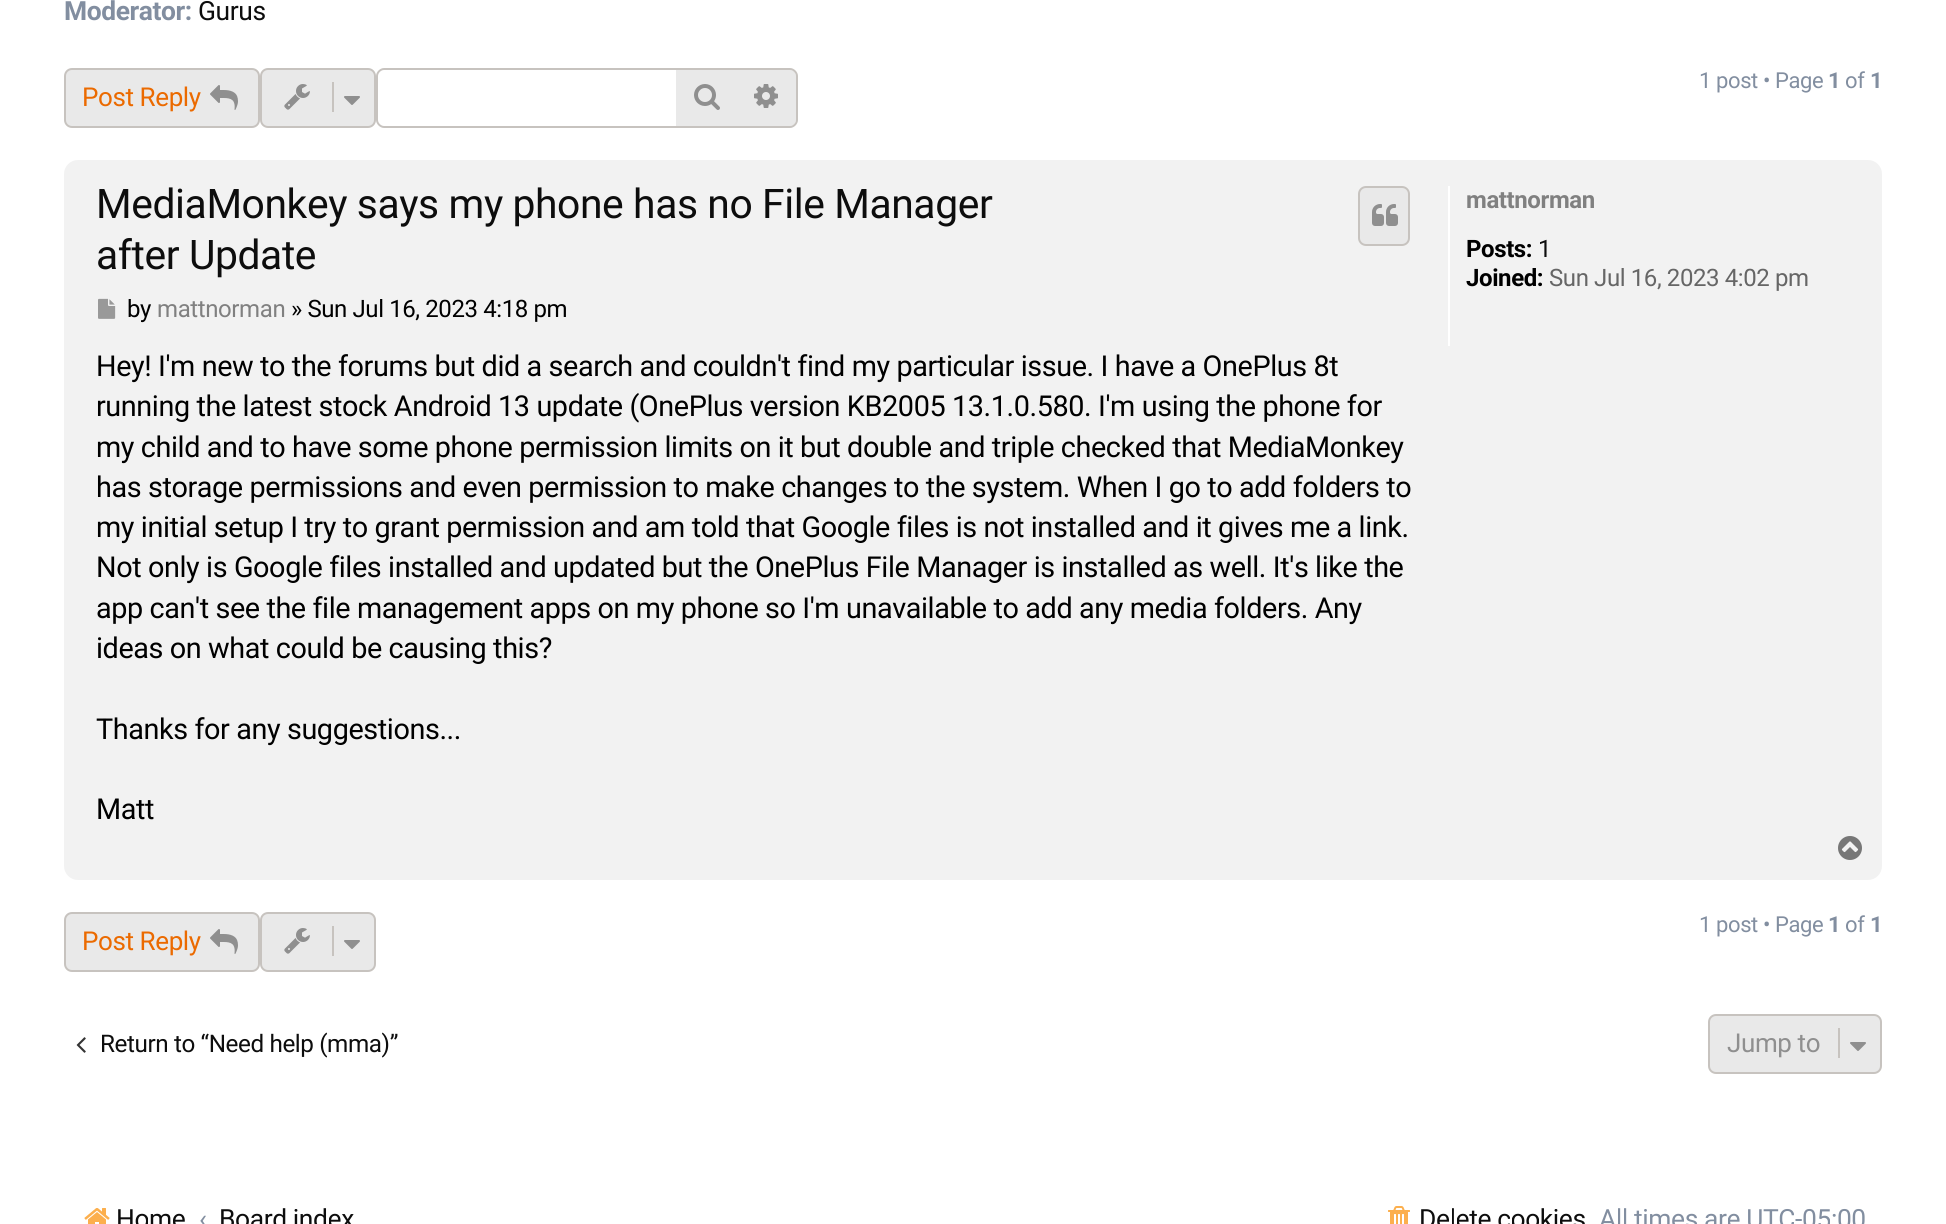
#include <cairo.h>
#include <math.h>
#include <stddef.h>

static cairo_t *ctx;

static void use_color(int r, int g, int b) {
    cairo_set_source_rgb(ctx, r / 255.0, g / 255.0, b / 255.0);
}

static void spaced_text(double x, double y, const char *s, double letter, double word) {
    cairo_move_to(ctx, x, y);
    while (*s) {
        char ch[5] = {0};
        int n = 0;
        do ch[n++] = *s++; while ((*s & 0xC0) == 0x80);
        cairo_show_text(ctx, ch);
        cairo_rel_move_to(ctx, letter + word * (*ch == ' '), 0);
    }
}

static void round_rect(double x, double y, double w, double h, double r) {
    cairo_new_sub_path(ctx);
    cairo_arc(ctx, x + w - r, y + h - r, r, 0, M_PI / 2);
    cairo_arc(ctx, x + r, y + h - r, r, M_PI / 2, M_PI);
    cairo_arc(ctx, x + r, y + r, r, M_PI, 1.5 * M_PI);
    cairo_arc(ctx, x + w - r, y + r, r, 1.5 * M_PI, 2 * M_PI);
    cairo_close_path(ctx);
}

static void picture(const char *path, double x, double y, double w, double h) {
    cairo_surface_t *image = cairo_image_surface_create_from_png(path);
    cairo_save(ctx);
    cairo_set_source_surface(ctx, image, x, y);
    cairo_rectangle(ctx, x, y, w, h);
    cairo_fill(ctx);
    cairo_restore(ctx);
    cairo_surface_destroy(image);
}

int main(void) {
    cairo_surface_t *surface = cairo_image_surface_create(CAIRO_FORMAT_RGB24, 1946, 1224);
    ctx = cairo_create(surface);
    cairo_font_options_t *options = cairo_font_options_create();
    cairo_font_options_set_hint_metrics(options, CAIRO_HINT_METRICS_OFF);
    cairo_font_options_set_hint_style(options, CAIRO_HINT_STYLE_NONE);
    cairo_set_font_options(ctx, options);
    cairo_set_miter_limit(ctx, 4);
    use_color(255, 255, 255);
    cairo_paint(ctx);
    cairo_select_font_face(ctx, "Roboto", CAIRO_FONT_SLANT_NORMAL, CAIRO_FONT_WEIGHT_BOLD);
    cairo_set_font_size(ctx, 26.4);
    use_color(130, 142, 160);
    spaced_text(64, 20, "Moderator:", -0.4, 0);
    cairo_select_font_face(ctx, "Roboto", CAIRO_FONT_SLANT_NORMAL, CAIRO_FONT_WEIGHT_NORMAL);
    use_color(13, 13, 13);
    spaced_text(198, 20, "Gurus", -0.4, 0);
    use_color(233, 233, 233);
    round_rect(261, 69, 114, 58, 7);
    cairo_fill_preserve(ctx);
    use_color(199, 195, 191);
    cairo_stroke(ctx);
    picture("img1.png", 284, 84, 26, 26);
    cairo_rectangle(ctx, 332, 82, 2, 30);
    cairo_fill(ctx);
    picture("img2.png", 344, 96, 16, 9);
    cairo_set_fill_rule(ctx, CAIRO_FILL_RULE_EVEN_ODD);
    cairo_new_path(ctx);
    cairo_move_to(ctx, 384, 68);
    cairo_line_to(ctx, 676, 68);
    cairo_line_to(ctx, 676, 128);
    cairo_line_to(ctx, 384, 128);
    cairo_curve_to(ctx, 380, 128, 376, 124, 376, 120);
    cairo_line_to(ctx, 376, 76);
    cairo_curve_to(ctx, 376, 72, 380, 68, 384, 68);
    cairo_close_path(ctx);
    cairo_move_to(ctx, 384, 70);
    cairo_line_to(ctx, 676, 70);
    cairo_line_to(ctx, 676, 126);
    cairo_line_to(ctx, 384, 126);
    cairo_curve_to(ctx, 381, 126, 378, 123, 378, 120);
    cairo_line_to(ctx, 378, 76);
    cairo_curve_to(ctx, 378, 73, 381, 70, 384, 70);
    cairo_close_path(ctx);
    cairo_fill(ctx);
    use_color(233, 233, 233);
    cairo_rectangle(ctx, 676, 70, 60, 56);
    cairo_fill(ctx);
    use_color(199, 195, 191);
    cairo_rectangle(ctx, 676, 68, 60, 2);
    cairo_fill(ctx);
    cairo_rectangle(ctx, 676, 126, 60, 2);
    cairo_fill(ctx);
    picture("img3.png", 694, 84, 26, 26);
    use_color(233, 233, 233);
    cairo_new_path(ctx);
    cairo_move_to(ctx, 736, 70);
    cairo_line_to(ctx, 790, 70);
    cairo_curve_to(ctx, 793.5, 70, 796, 72.5, 796, 76);
    cairo_line_to(ctx, 796, 120);
    cairo_curve_to(ctx, 796, 123.5, 793.5, 126, 790, 126);
    cairo_line_to(ctx, 736, 126);
    cairo_close_path(ctx);
    cairo_fill(ctx);
    use_color(199, 195, 191);
    cairo_new_path(ctx);
    cairo_move_to(ctx, 736, 68);
    cairo_line_to(ctx, 790, 68);
    cairo_curve_to(ctx, 794, 68, 798, 72, 798, 76);
    cairo_line_to(ctx, 798, 120);
    cairo_curve_to(ctx, 798, 124, 794, 128, 790, 128);
    cairo_line_to(ctx, 736, 128);
    cairo_close_path(ctx);
    cairo_move_to(ctx, 736, 70);
    cairo_line_to(ctx, 790, 70);
    cairo_curve_to(ctx, 793, 70, 796, 73, 796, 76);
    cairo_line_to(ctx, 796, 120);
    cairo_curve_to(ctx, 796, 123, 793, 126, 790, 126);
    cairo_line_to(ctx, 736, 126);
    cairo_close_path(ctx);
    cairo_fill(ctx);
    picture("img4.png", 754, 84, 24, 24);
    cairo_set_font_size(ctx, 22);
    use_color(130, 142, 160);
    spaced_text(1699, 88, "1 post • Page", -0.4, 0);
    cairo_select_font_face(ctx, "Roboto", CAIRO_FONT_SLANT_NORMAL, CAIRO_FONT_WEIGHT_BOLD);
    spaced_text(1828, 88, "1", -0.4, 0);
    cairo_select_font_face(ctx, "Roboto", CAIRO_FONT_SLANT_NORMAL, CAIRO_FONT_WEIGHT_NORMAL);
    spaced_text(1845, 88, "of", -0.4, 0);
    cairo_select_font_face(ctx, "Roboto", CAIRO_FONT_SLANT_NORMAL, CAIRO_FONT_WEIGHT_BOLD);
    spaced_text(1870, 88, "1", -0.4, 0);
    use_color(233, 233, 233);
    round_rect(65, 69, 194, 58, 7);
    cairo_fill_preserve(ctx);
    use_color(199, 195, 191);
    cairo_stroke(ctx);
    cairo_select_font_face(ctx, "Roboto", CAIRO_FONT_SLANT_NORMAL, CAIRO_FONT_WEIGHT_NORMAL);
    cairo_set_font_size(ctx, 26);
    use_color(235, 106, 0);
    spaced_text(82, 106, "Post Reply", -0.4, 0);
    picture("img5.png", 210, 85, 28, 25);
    use_color(242, 242, 242);
    round_rect(64, 160, 1818, 720, 14);
    cairo_fill(ctx);
    cairo_set_font_size(ctx, 40.8);
    use_color(13, 13, 13);
    spaced_text(96, 218, "MediaMonkey says my phone has no File Manager", -0.4, 0);
    spaced_text(96, 269, "after Update", -0.4, 0);
    use_color(233, 233, 233);
    round_rect(1359, 187, 50, 58, 7);
    cairo_fill_preserve(ctx);
    use_color(199, 195, 191);
    cairo_stroke(ctx);
    picture("img6.png", 1372, 204, 26, 22);
    picture("img7.png", 98, 298, 18, 21);
    cairo_set_font_size(ctx, 24);
    use_color(0, 0, 0);
    spaced_text(127, 317, "by", -0.4, 0);
    use_color(128, 128, 128);
    spaced_text(157, 317, "mattnorman", -0.4, 0);
    use_color(0, 0, 0);
    spaced_text(291, 317, "» Sun Jul 16, 2023 4:18 pm", -0.4, 0);
    cairo_set_font_size(ctx, 28.8);
    spaced_text(96, 376, "Hey! I'm new to the forums but did a search and couldn't find my particular issue. I have a OnePlus 8t", -0.4, 0);
    spaced_text(96, 416, "running the latest stock Android 13 update (OnePlus version KB2005 13.1.0.580. I'm using the phone for", -0.4, 0);
    spaced_text(96, 457, "my child and to have some phone permission limits on it but double and triple checked that MediaMonkey", -0.4, 0);
    spaced_text(96, 497, "has storage permissions and even permission to make changes to the system. When I go to add folders to", -0.4, 0);
    spaced_text(96, 537, "my initial setup I try to grant permission and am told that Google files is not installed and it gives me a link.", -0.4, 0);
    spaced_text(96, 577, "Not only is Google files installed and updated but the OnePlus File Manager is installed as well. It's like the", -0.4, 0);
    spaced_text(96, 618, "app can't see the file management apps on my phone so I'm unavailable to add any media folders. Any", -0.4, 0);
    spaced_text(96, 658, "ideas on what could be causing this?", -0.4, 0);
    spaced_text(96, 739, "Thanks for any suggestions...", -0.4, 0);
    spaced_text(96, 819, "Matt", -0.4, 0);
    use_color(255, 255, 255);
    cairo_rectangle(ctx, 1448, 186, 2, 160);
    cairo_fill(ctx);
    cairo_select_font_face(ctx, "Roboto", CAIRO_FONT_SLANT_NORMAL, CAIRO_FONT_WEIGHT_BOLD);
    cairo_set_font_size(ctx, 24);
    use_color(128, 128, 128);
    spaced_text(1466, 208, "mattnorman", -0.4, 0);
    use_color(0, 0, 0);
    spaced_text(1466, 257, "Posts:", -0.4, 0);
    cairo_select_font_face(ctx, "Roboto", CAIRO_FONT_SLANT_NORMAL, CAIRO_FONT_WEIGHT_NORMAL);
    use_color(13, 13, 13);
    spaced_text(1538, 257, "1", -0.4, 0);
    cairo_select_font_face(ctx, "Roboto", CAIRO_FONT_SLANT_NORMAL, CAIRO_FONT_WEIGHT_BOLD);
    use_color(0, 0, 0);
    spaced_text(1466, 286, "Joined:", -0.4, 0);
    cairo_select_font_face(ctx, "Roboto", CAIRO_FONT_SLANT_NORMAL, CAIRO_FONT_WEIGHT_NORMAL);
    use_color(102, 102, 102);
    spaced_text(1549, 286, "Sun Jul 16, 2023 4:02 pm", -0.4, 0);
    picture("img8.png", 1838, 836, 24, 24);
    use_color(233, 233, 233);
    round_rect(261, 913, 114, 58, 7);
    cairo_fill_preserve(ctx);
    use_color(199, 195, 191);
    cairo_stroke(ctx);
    picture("img1.png", 284, 928, 26, 26);
    cairo_rectangle(ctx, 332, 926, 2, 30);
    cairo_fill(ctx);
    picture("img2.png", 344, 940, 16, 9);
    cairo_set_font_size(ctx, 22);
    use_color(130, 142, 160);
    spaced_text(1699, 932, "1 post • Page", -0.4, 0);
    cairo_select_font_face(ctx, "Roboto", CAIRO_FONT_SLANT_NORMAL, CAIRO_FONT_WEIGHT_BOLD);
    spaced_text(1828, 932, "1", -0.4, 0);
    cairo_select_font_face(ctx, "Roboto", CAIRO_FONT_SLANT_NORMAL, CAIRO_FONT_WEIGHT_NORMAL);
    spaced_text(1845, 932, "of", -0.4, 0);
    cairo_select_font_face(ctx, "Roboto", CAIRO_FONT_SLANT_NORMAL, CAIRO_FONT_WEIGHT_BOLD);
    spaced_text(1870, 932, "1", -0.4, 0);
    use_color(233, 233, 233);
    round_rect(65, 913, 194, 58, 7);
    cairo_fill_preserve(ctx);
    use_color(199, 195, 191);
    cairo_stroke(ctx);
    cairo_select_font_face(ctx, "Roboto", CAIRO_FONT_SLANT_NORMAL, CAIRO_FONT_WEIGHT_NORMAL);
    cairo_set_font_size(ctx, 26);
    use_color(235, 106, 0);
    spaced_text(82, 950, "Post Reply", -0.4, 0);
    picture("img5.png", 210, 929, 28, 25);
    picture("img9.png", 76, 1037, 10, 16);
    cairo_set_font_size(ctx, 24.25);
    use_color(13, 13, 13);
    spaced_text(100, 1052, "Return to “Need help (mma)”", -0.4, 0);
    use_color(233, 233, 233);
    round_rect(1709, 1015, 172, 58, 7);
    cairo_fill_preserve(ctx);
    use_color(199, 195, 191);
    cairo_stroke(ctx);
    cairo_set_font_size(ctx, 26);
    use_color(143, 143, 143);
    spaced_text(1727, 1052, "Jump to", -0.4, 0);
    use_color(199, 195, 191);
    cairo_rectangle(ctx, 1838, 1028, 2, 30);
    cairo_fill(ctx);
    picture("img2.png", 1850, 1042, 16, 9);
    picture("img10.png", 84, 1208, 26, 16);
    cairo_set_font_size(ctx, 26.4);
    use_color(13, 13, 13);
    spaced_text(116, 1228, "Home", -0.4, 0);
    use_color(130, 142, 160);
    spaced_text(199, 1228, "‹", -0.4, 0);
    use_color(13, 13, 13);
    spaced_text(219, 1228, "Board index", -0.4, 0);
    picture("img11.png", 1388, 1206, 22, 18);
    spaced_text(1419, 1228, "Delete cookies", -0.4, 0);
    use_color(130, 142, 160);
    spaced_text(1599, 1228, "All times are UTC-05:00", -0.4, 0);
    cairo_surface_write_to_png(surface, "result.png");
    cairo_font_options_destroy(options);
    cairo_destroy(ctx);
    cairo_surface_destroy(surface);
    return 0;
}
